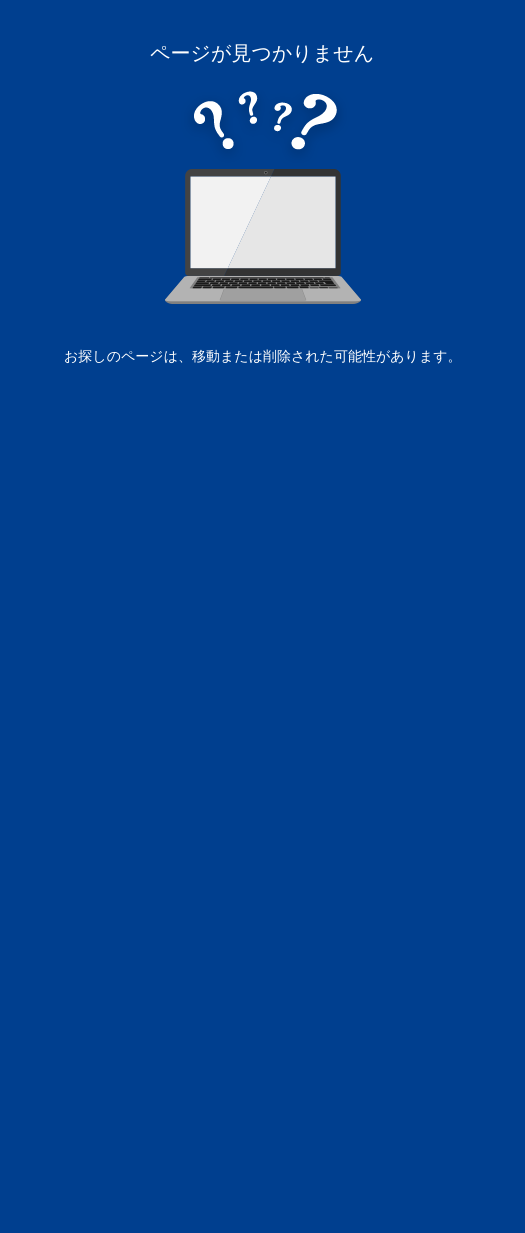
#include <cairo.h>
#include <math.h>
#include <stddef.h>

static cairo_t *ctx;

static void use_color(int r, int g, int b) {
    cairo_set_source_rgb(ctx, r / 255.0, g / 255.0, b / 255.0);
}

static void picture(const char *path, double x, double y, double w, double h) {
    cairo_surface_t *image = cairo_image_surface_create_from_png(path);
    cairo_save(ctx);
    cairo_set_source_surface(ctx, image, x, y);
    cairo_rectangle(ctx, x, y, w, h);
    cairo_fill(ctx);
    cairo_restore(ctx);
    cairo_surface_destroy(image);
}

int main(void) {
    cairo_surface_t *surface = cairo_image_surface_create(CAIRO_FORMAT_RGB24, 525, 1233);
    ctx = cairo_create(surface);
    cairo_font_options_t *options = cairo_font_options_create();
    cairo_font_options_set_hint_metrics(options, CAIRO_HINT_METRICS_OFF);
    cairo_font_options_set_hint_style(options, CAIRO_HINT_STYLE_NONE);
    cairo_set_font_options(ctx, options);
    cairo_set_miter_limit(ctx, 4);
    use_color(0, 63, 143);
    cairo_paint(ctx);
    cairo_select_font_face(ctx, "WenQuanYi Zen Hei Medium", CAIRO_FONT_SLANT_NORMAL, CAIRO_FONT_WEIGHT_NORMAL);
    cairo_set_font_size(ctx, 20);
    use_color(255, 255, 255);
    cairo_move_to(ctx, 150, 60);
    cairo_show_text(ctx, "ページが見つかりません");
    picture("img1.png", 165, 90, 196, 214);
    cairo_set_font_size(ctx, 14);
    cairo_move_to(ctx, 64, 361);
    cairo_show_text(ctx, "お探しのページは、移動または削除された可能性があります。");
    cairo_surface_write_to_png(surface, "result.png");
    cairo_font_options_destroy(options);
    cairo_destroy(ctx);
    cairo_surface_destroy(surface);
    return 0;
}
